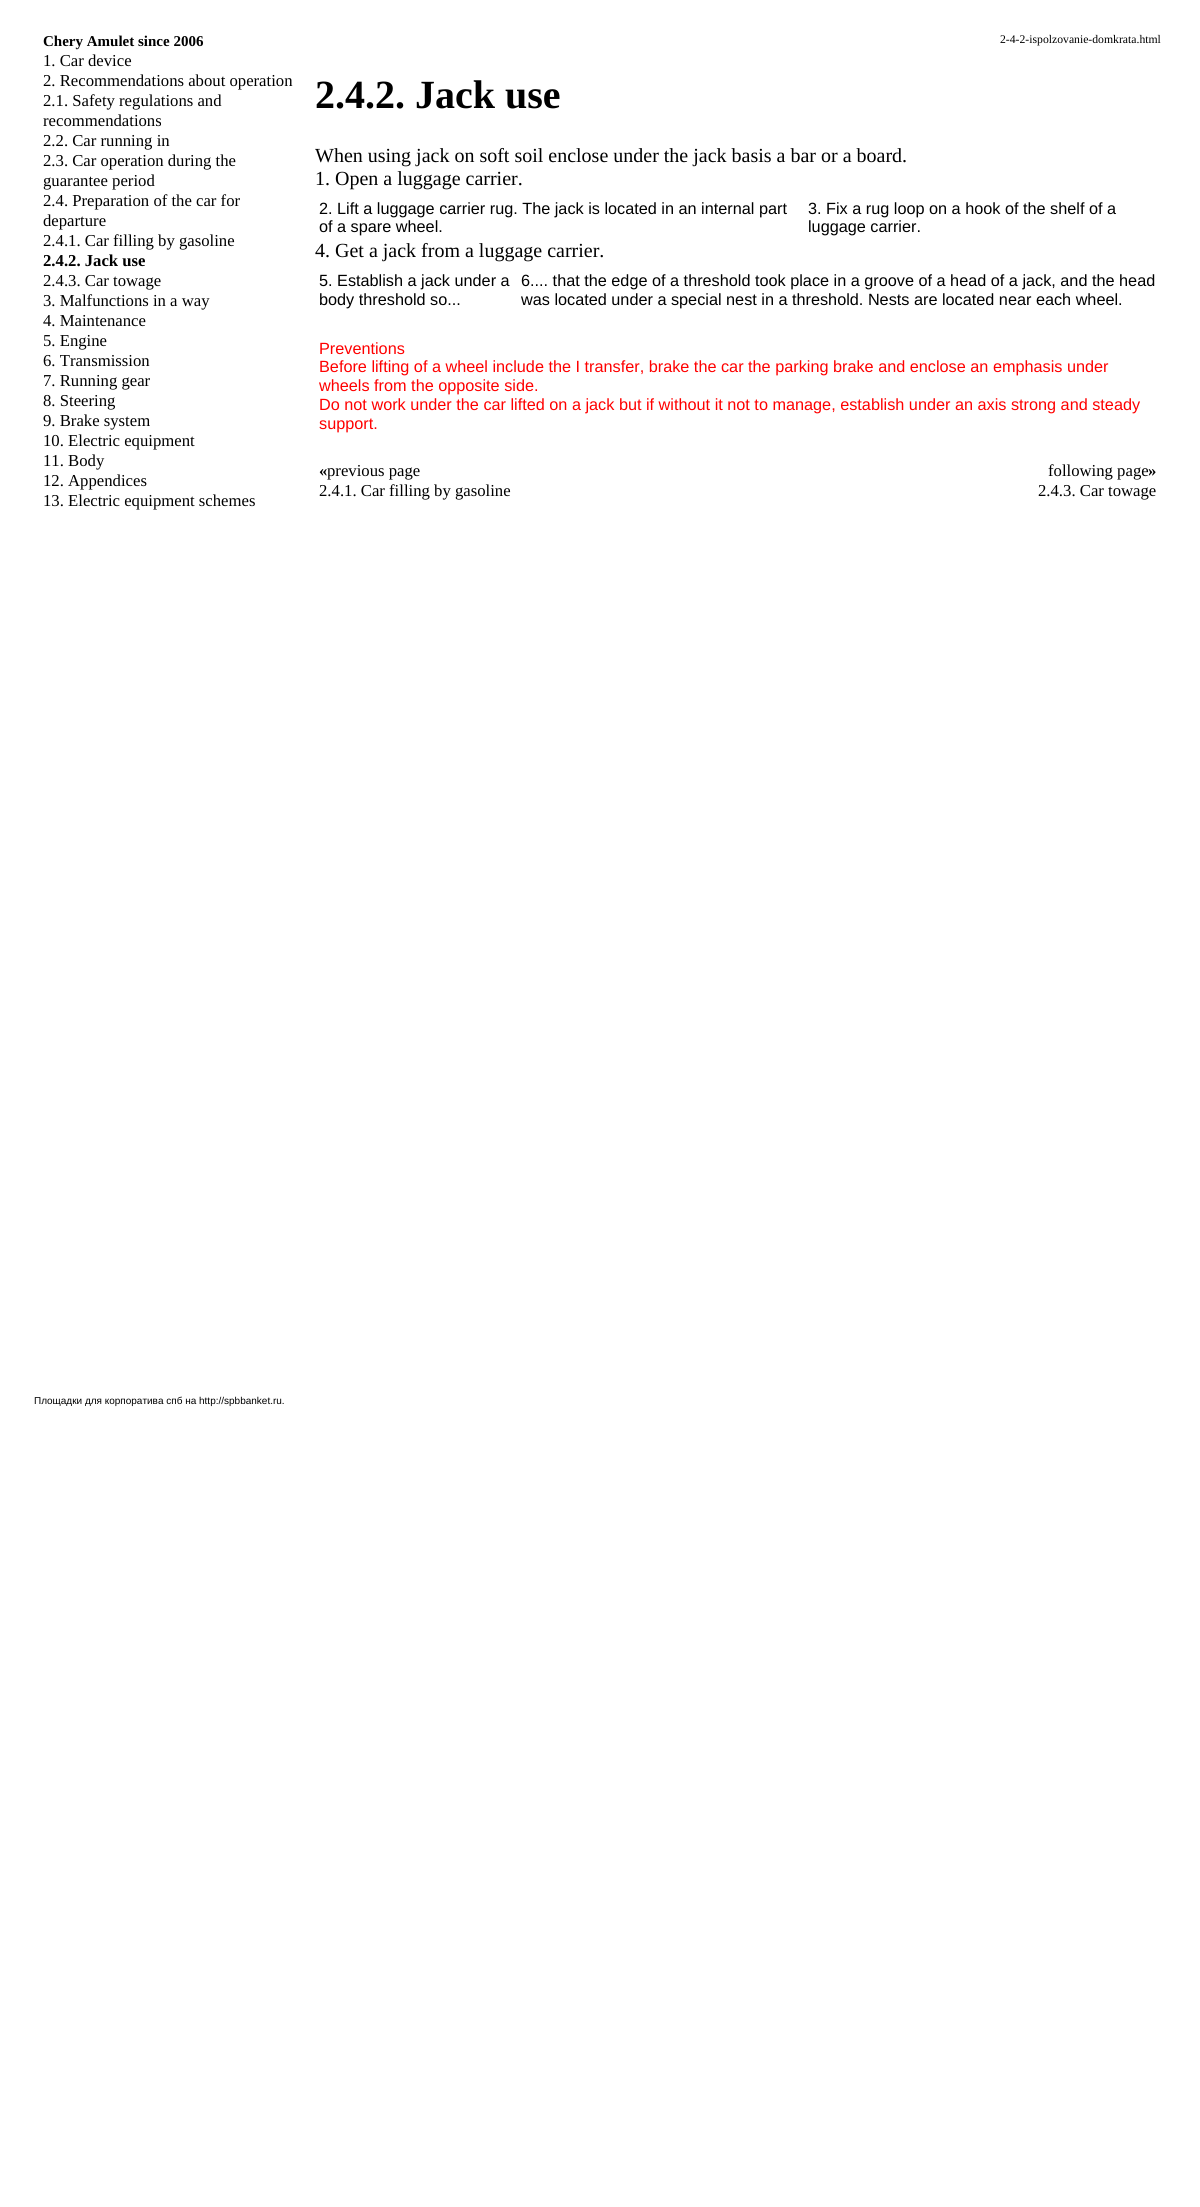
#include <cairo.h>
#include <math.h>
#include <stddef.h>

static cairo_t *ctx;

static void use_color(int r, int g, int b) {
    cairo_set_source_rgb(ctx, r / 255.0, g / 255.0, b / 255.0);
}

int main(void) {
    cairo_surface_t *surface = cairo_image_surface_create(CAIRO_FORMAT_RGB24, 1200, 2207);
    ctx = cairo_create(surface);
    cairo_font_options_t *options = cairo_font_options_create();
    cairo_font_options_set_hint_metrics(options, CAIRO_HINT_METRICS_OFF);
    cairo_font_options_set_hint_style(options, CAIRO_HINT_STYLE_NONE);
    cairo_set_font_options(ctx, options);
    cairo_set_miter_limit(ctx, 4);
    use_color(255, 255, 255);
    cairo_paint(ctx);
    cairo_select_font_face(ctx, "Liberation Serif", CAIRO_FONT_SLANT_NORMAL, CAIRO_FONT_WEIGHT_BOLD);
    cairo_set_font_size(ctx, 15);
    use_color(0, 0, 0);
    cairo_move_to(ctx, 43, 46);
    cairo_show_text(ctx, "Chery Amulet since 2006");
    cairo_select_font_face(ctx, "Liberation Serif", CAIRO_FONT_SLANT_NORMAL, CAIRO_FONT_WEIGHT_NORMAL);
    cairo_set_font_size(ctx, 16.7);
    cairo_move_to(ctx, 43, 66);
    cairo_show_text(ctx, "1. Car device");
    cairo_move_to(ctx, 43, 86);
    cairo_show_text(ctx, "2. Recommendations about operation");
    cairo_move_to(ctx, 43, 106);
    cairo_show_text(ctx, "2.1. Safety regulations and");
    cairo_move_to(ctx, 43, 126);
    cairo_show_text(ctx, "recommendations");
    cairo_move_to(ctx, 43, 146);
    cairo_show_text(ctx, "2.2. Car running in");
    cairo_move_to(ctx, 43, 166);
    cairo_show_text(ctx, "2.3. Car operation during the");
    cairo_move_to(ctx, 43, 186);
    cairo_show_text(ctx, "guarantee period");
    cairo_move_to(ctx, 43, 206);
    cairo_show_text(ctx, "2.4. Preparation of the car for");
    cairo_move_to(ctx, 43, 226);
    cairo_show_text(ctx, "departure");
    cairo_move_to(ctx, 43, 246);
    cairo_show_text(ctx, "2.4.1. Car filling by gasoline");
    cairo_select_font_face(ctx, "Liberation Serif", CAIRO_FONT_SLANT_NORMAL, CAIRO_FONT_WEIGHT_BOLD);
    cairo_move_to(ctx, 43, 266);
    cairo_show_text(ctx, "2.4.2. Jack use");
    cairo_select_font_face(ctx, "Liberation Serif", CAIRO_FONT_SLANT_NORMAL, CAIRO_FONT_WEIGHT_NORMAL);
    cairo_move_to(ctx, 43, 286);
    cairo_show_text(ctx, "2.4.3. Car towage");
    cairo_move_to(ctx, 43, 306);
    cairo_show_text(ctx, "3. Malfunctions in a way");
    cairo_move_to(ctx, 43, 326);
    cairo_show_text(ctx, "4. Maintenance");
    cairo_move_to(ctx, 43, 346);
    cairo_show_text(ctx, "5. Engine");
    cairo_move_to(ctx, 43, 366);
    cairo_show_text(ctx, "6. Transmission");
    cairo_move_to(ctx, 43, 386);
    cairo_show_text(ctx, "7. Running gear");
    cairo_move_to(ctx, 43, 406);
    cairo_show_text(ctx, "8. Steering");
    cairo_move_to(ctx, 43, 426);
    cairo_show_text(ctx, "9. Brake system");
    cairo_move_to(ctx, 43, 446);
    cairo_show_text(ctx, "10. Electric equipment");
    cairo_move_to(ctx, 43, 466);
    cairo_show_text(ctx, "11. Body");
    cairo_move_to(ctx, 43, 486);
    cairo_show_text(ctx, "12. Appendices");
    cairo_move_to(ctx, 43, 506);
    cairo_show_text(ctx, "13. Electric equipment schemes");
    cairo_select_font_face(ctx, "Liberation Sans", CAIRO_FONT_SLANT_NORMAL, CAIRO_FONT_WEIGHT_NORMAL);
    cairo_set_font_size(ctx, 10);
    cairo_move_to(ctx, 34, 1404);
    cairo_show_text(ctx, "Площадки для корпоратива спб на http://spbbanket.ru.");
    cairo_select_font_face(ctx, "Liberation Serif", CAIRO_FONT_SLANT_NORMAL, CAIRO_FONT_WEIGHT_NORMAL);
    cairo_set_font_size(ctx, 11.7);
    cairo_move_to(ctx, 1000, 43);
    cairo_show_text(ctx, "2-4-2-ispolzovanie-domkrata.html");
    cairo_select_font_face(ctx, "Liberation Serif", CAIRO_FONT_SLANT_NORMAL, CAIRO_FONT_WEIGHT_BOLD);
    cairo_set_font_size(ctx, 40);
    cairo_move_to(ctx, 315, 108);
    cairo_show_text(ctx, "2.4.2. Jack use");
    cairo_select_font_face(ctx, "Liberation Serif", CAIRO_FONT_SLANT_NORMAL, CAIRO_FONT_WEIGHT_NORMAL);
    cairo_set_font_size(ctx, 20);
    cairo_move_to(ctx, 315, 162);
    cairo_show_text(ctx, "When using jack on soft soil enclose under the jack basis a bar or a board.");
    cairo_move_to(ctx, 315, 185);
    cairo_show_text(ctx, "1. Open a luggage carrier.");
    cairo_select_font_face(ctx, "Liberation Sans", CAIRO_FONT_SLANT_NORMAL, CAIRO_FONT_WEIGHT_NORMAL);
    cairo_set_font_size(ctx, 16.25);
    cairo_move_to(ctx, 319, 214);
    cairo_show_text(ctx, "2. Lift a luggage carrier rug. The jack is located in an internal part");
    cairo_move_to(ctx, 319, 232);
    cairo_show_text(ctx, "of a spare wheel.");
    cairo_move_to(ctx, 808, 214);
    cairo_show_text(ctx, "3. Fix a rug loop on a hook of the shelf of a");
    cairo_move_to(ctx, 808, 232);
    cairo_show_text(ctx, "luggage carrier.");
    cairo_select_font_face(ctx, "Liberation Serif", CAIRO_FONT_SLANT_NORMAL, CAIRO_FONT_WEIGHT_NORMAL);
    cairo_set_font_size(ctx, 20);
    cairo_move_to(ctx, 315, 257);
    cairo_show_text(ctx, "4. Get a jack from a luggage carrier.");
    cairo_select_font_face(ctx, "Liberation Sans", CAIRO_FONT_SLANT_NORMAL, CAIRO_FONT_WEIGHT_NORMAL);
    cairo_set_font_size(ctx, 16.25);
    cairo_move_to(ctx, 319, 286);
    cairo_show_text(ctx, "5. Establish a jack under a");
    cairo_move_to(ctx, 319, 305);
    cairo_show_text(ctx, "body threshold so...");
    cairo_move_to(ctx, 521, 286);
    cairo_show_text(ctx, "6.... that the edge of a threshold took place in a groove of a head of a jack, and the head");
    cairo_move_to(ctx, 521, 305);
    cairo_show_text(ctx, "was located under a special nest in a threshold. Nests are located near each wheel.");
    use_color(255, 0, 0);
    cairo_move_to(ctx, 319, 354);
    cairo_show_text(ctx, "Preventions");
    cairo_move_to(ctx, 319, 372);
    cairo_show_text(ctx, "Before lifting of a wheel include the I transfer, brake the car the parking brake and enclose an emphasis under");
    cairo_move_to(ctx, 319, 391);
    cairo_show_text(ctx, "wheels from the opposite side.");
    cairo_move_to(ctx, 319, 410);
    cairo_show_text(ctx, "Do not work under the car lifted on a jack but if without it not to manage, establish under an axis strong and steady");
    cairo_move_to(ctx, 319, 429);
    cairo_show_text(ctx, "support.");
    cairo_select_font_face(ctx, "Liberation Serif", CAIRO_FONT_SLANT_NORMAL, CAIRO_FONT_WEIGHT_BOLD);
    cairo_set_font_size(ctx, 16.7);
    use_color(0, 0, 0);
    cairo_move_to(ctx, 319, 476);
    cairo_show_text(ctx, "«");
    cairo_select_font_face(ctx, "Liberation Serif", CAIRO_FONT_SLANT_NORMAL, CAIRO_FONT_WEIGHT_NORMAL);
    cairo_move_to(ctx, 327, 476);
    cairo_show_text(ctx, "previous page");
    cairo_move_to(ctx, 319, 496);
    cairo_show_text(ctx, "2.4.1. Car filling by gasoline");
    cairo_move_to(ctx, 1048, 476);
    cairo_show_text(ctx, "following page");
    cairo_select_font_face(ctx, "Liberation Serif", CAIRO_FONT_SLANT_NORMAL, CAIRO_FONT_WEIGHT_BOLD);
    cairo_move_to(ctx, 1148, 476);
    cairo_show_text(ctx, "»");
    cairo_select_font_face(ctx, "Liberation Serif", CAIRO_FONT_SLANT_NORMAL, CAIRO_FONT_WEIGHT_NORMAL);
    cairo_move_to(ctx, 1038, 496);
    cairo_show_text(ctx, "2.4.3. Car towage");
    cairo_surface_write_to_png(surface, "result.png");
    cairo_font_options_destroy(options);
    cairo_destroy(ctx);
    cairo_surface_destroy(surface);
    return 0;
}
